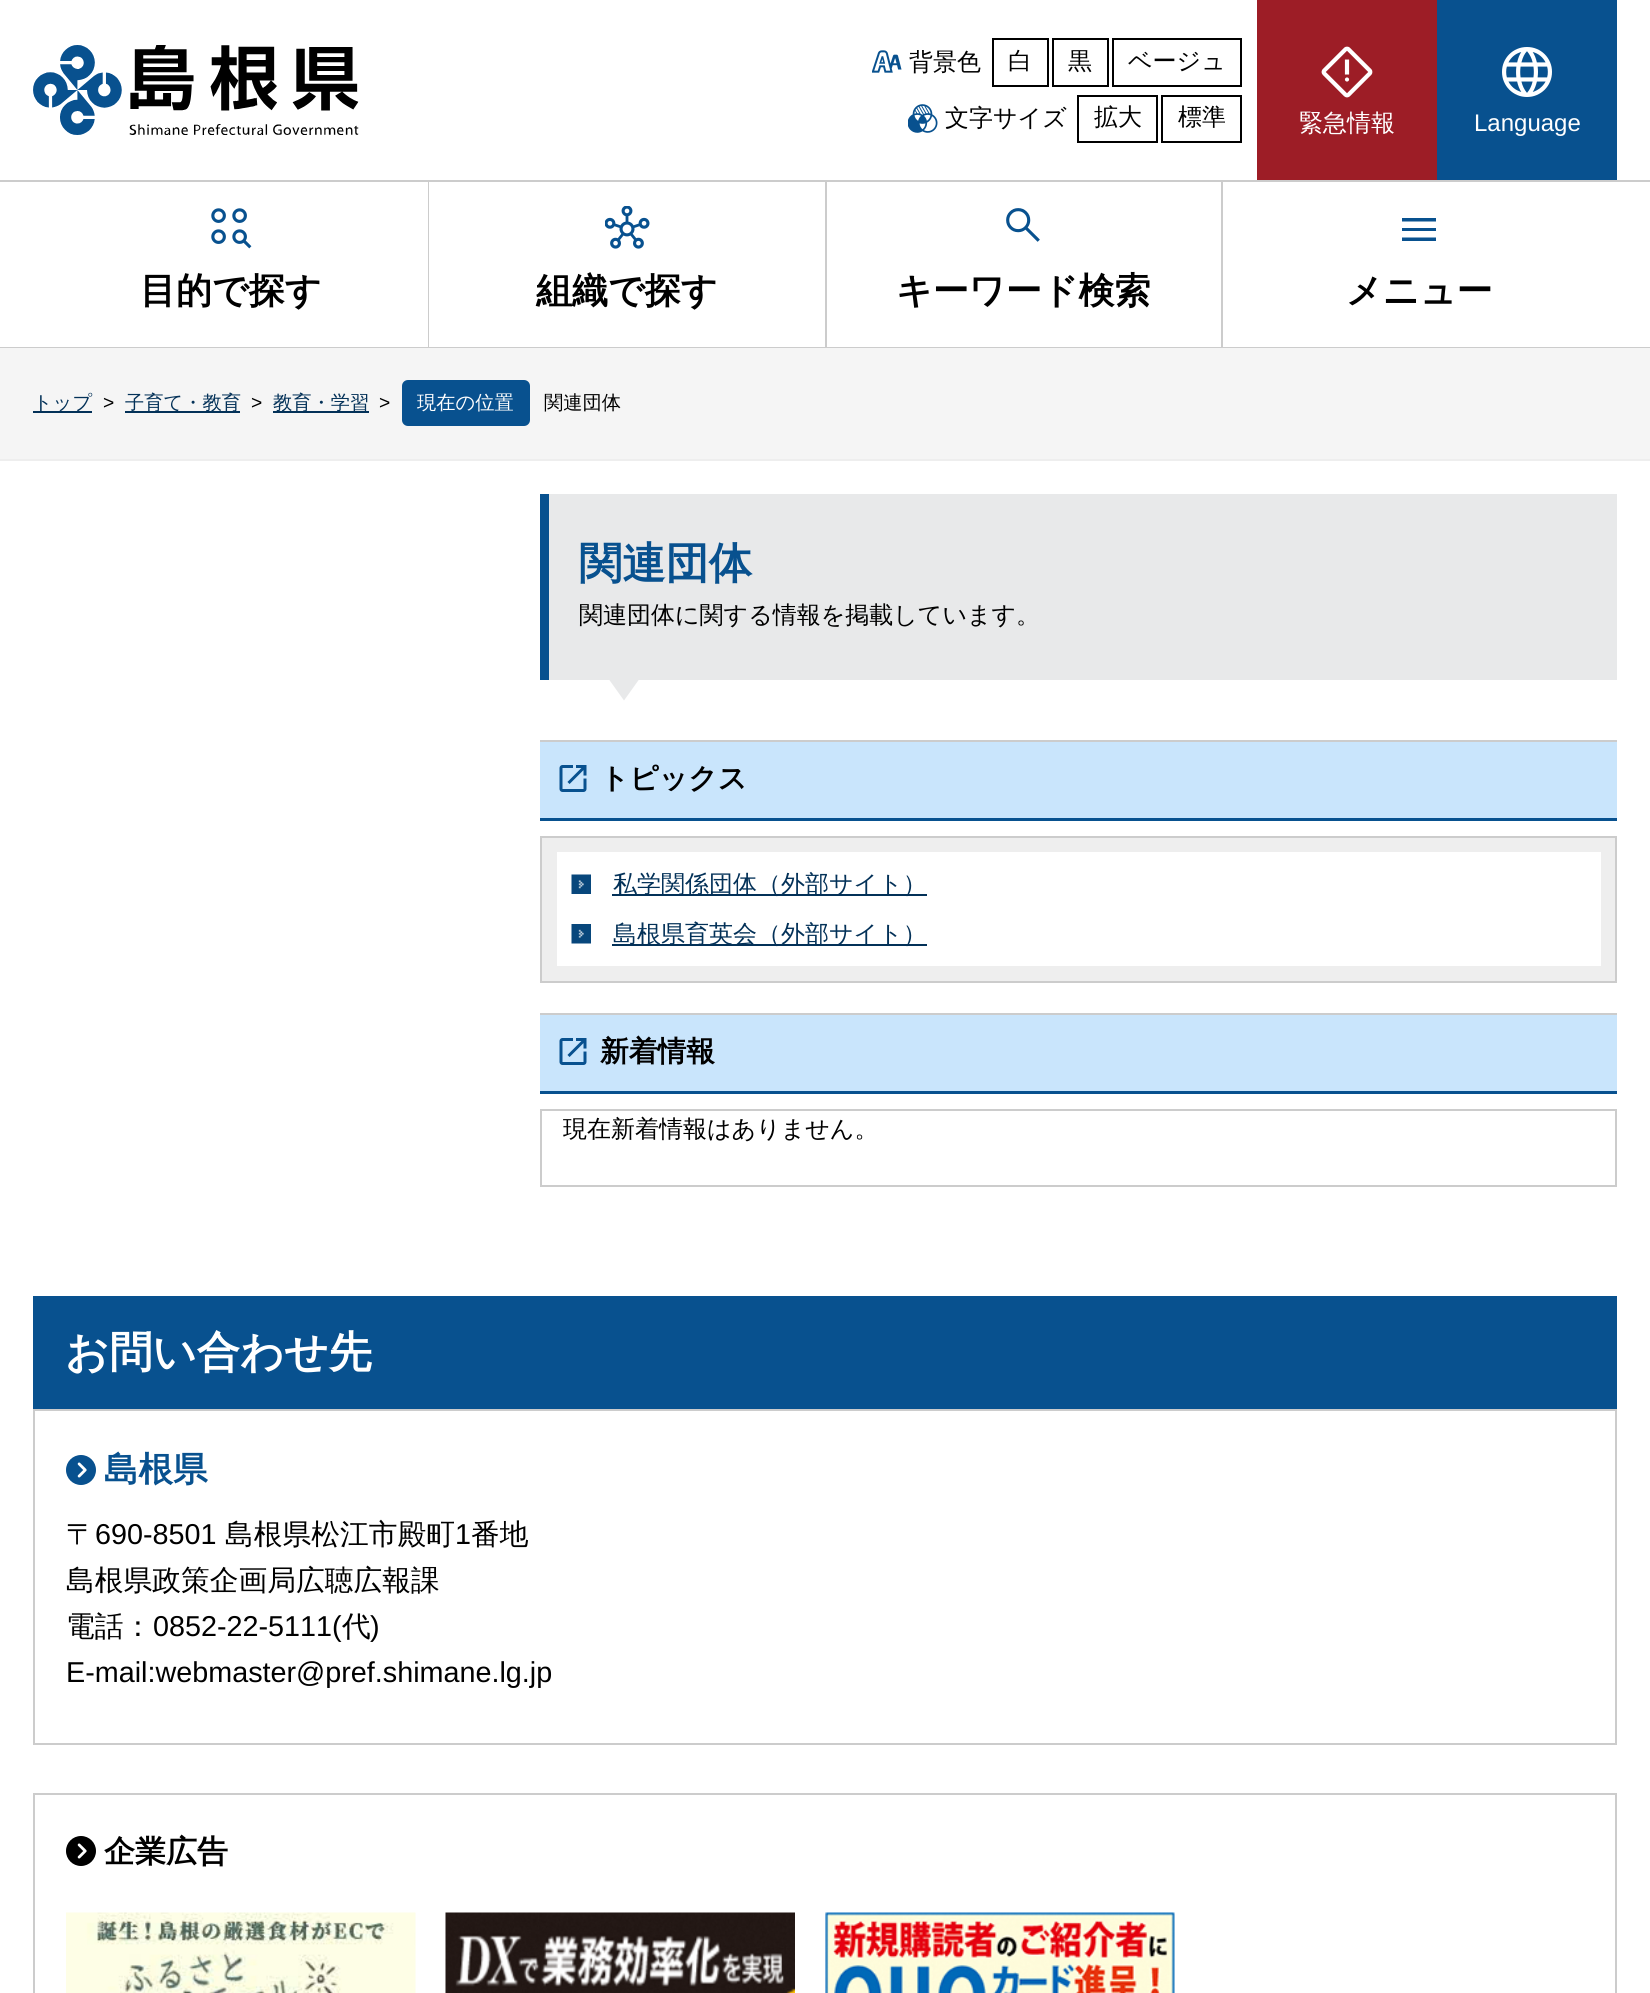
#include <cairo.h>
#include <math.h>
#include <stddef.h>

static cairo_t *ctx;

static void use_color(int r, int g, int b) {
    cairo_set_source_rgb(ctx, r / 255.0, g / 255.0, b / 255.0);
}

static void round_rect(double x, double y, double w, double h, double r) {
    cairo_new_sub_path(ctx);
    cairo_arc(ctx, x + w - r, y + h - r, r, 0, M_PI / 2);
    cairo_arc(ctx, x + r, y + h - r, r, M_PI / 2, M_PI);
    cairo_arc(ctx, x + r, y + r, r, M_PI, 1.5 * M_PI);
    cairo_arc(ctx, x + w - r, y + r, r, 1.5 * M_PI, 2 * M_PI);
    cairo_close_path(ctx);
}

static void picture(const char *path, double x, double y, double w, double h) {
    cairo_surface_t *image = cairo_image_surface_create_from_png(path);
    cairo_save(ctx);
    cairo_set_source_surface(ctx, image, x, y);
    cairo_rectangle(ctx, x, y, w, h);
    cairo_fill(ctx);
    cairo_restore(ctx);
    cairo_surface_destroy(image);
}

int main(void) {
    cairo_surface_t *surface = cairo_image_surface_create(CAIRO_FORMAT_RGB24, 1650, 1993);
    ctx = cairo_create(surface);
    cairo_font_options_t *options = cairo_font_options_create();
    cairo_font_options_set_hint_metrics(options, CAIRO_HINT_METRICS_OFF);
    cairo_font_options_set_hint_style(options, CAIRO_HINT_STYLE_NONE);
    cairo_set_font_options(ctx, options);
    cairo_set_miter_limit(ctx, 4);
    use_color(255, 255, 255);
    cairo_paint(ctx);
    picture("img1.png", 33, 45, 326, 90);
    picture("img2.png", 872, 50, 30, 23);
    cairo_select_font_face(ctx, "WenQuanYi Zen Hei Medium", CAIRO_FONT_SLANT_NORMAL, CAIRO_FONT_WEIGHT_NORMAL);
    cairo_set_font_size(ctx, 24);
    use_color(0, 0, 0);
    cairo_move_to(ctx, 909, 70);
    cairo_show_text(ctx, "背景色");
    cairo_rectangle(ctx, 993, 39, 55, 47);
    cairo_stroke(ctx);
    cairo_move_to(ctx, 1008, 69);
    cairo_show_text(ctx, "白");
    cairo_rectangle(ctx, 1053, 39, 55, 47);
    cairo_stroke(ctx);
    cairo_move_to(ctx, 1068, 69);
    cairo_show_text(ctx, "黒");
    cairo_rectangle(ctx, 1113, 39, 128, 47);
    cairo_stroke(ctx);
    cairo_move_to(ctx, 1128, 69);
    cairo_show_text(ctx, "ベージュ");
    picture("img3.png", 908, 104, 30, 29);
    cairo_move_to(ctx, 945, 126);
    cairo_show_text(ctx, "文字サイズ");
    cairo_rectangle(ctx, 1078, 96, 79, 46);
    cairo_stroke(ctx);
    cairo_move_to(ctx, 1094, 125);
    cairo_show_text(ctx, "拡大");
    cairo_rectangle(ctx, 1162, 96, 79, 46);
    cairo_stroke(ctx);
    cairo_move_to(ctx, 1178, 125);
    cairo_show_text(ctx, "標準");
    use_color(157, 29, 38);
    cairo_rectangle(ctx, 1257, 0, 180, 180);
    cairo_fill(ctx);
    picture("img4.png", 1321, 46, 52, 52);
    use_color(255, 255, 255);
    cairo_move_to(ctx, 1299, 131);
    cairo_show_text(ctx, "緊急情報");
    use_color(8, 81, 143);
    cairo_rectangle(ctx, 1437, 0, 180, 180);
    cairo_fill(ctx);
    picture("img5.png", 1502, 47, 50, 50);
    cairo_select_font_face(ctx, "Liberation Sans", CAIRO_FONT_SLANT_NORMAL, CAIRO_FONT_WEIGHT_NORMAL);
    use_color(255, 255, 255);
    cairo_move_to(ctx, 1474, 131);
    cairo_show_text(ctx, "Language");
    use_color(204, 204, 204);
    cairo_rectangle(ctx, 0, 180, 1650, 2);
    cairo_fill(ctx);
    cairo_rectangle(ctx, 0, 347, 1650, 1);
    cairo_fill(ctx);
    cairo_rectangle(ctx, 428, 182, 1, 165);
    cairo_fill(ctx);
    picture("img6.png", 211, 208, 41, 41);
    cairo_select_font_face(ctx, "WenQuanYi Zen Hei", CAIRO_FONT_SLANT_NORMAL, CAIRO_FONT_WEIGHT_BOLD);
    cairo_set_font_size(ctx, 36);
    use_color(0, 0, 0);
    cairo_move_to(ctx, 140, 303);
    cairo_show_text(ctx, "目的で探す");
    use_color(204, 204, 204);
    cairo_rectangle(ctx, 825, 182, 2, 165);
    cairo_fill(ctx);
    picture("img7.png", 605, 206, 45, 43);
    use_color(0, 0, 0);
    cairo_move_to(ctx, 536, 303);
    cairo_show_text(ctx, "組織で探す");
    use_color(204, 204, 204);
    cairo_rectangle(ctx, 1221, 182, 2, 165);
    cairo_fill(ctx);
    picture("img8.png", 1006, 208, 34, 34);
    use_color(0, 0, 0);
    cairo_move_to(ctx, 896, 303);
    cairo_show_text(ctx, "キーワード検索");
    use_color(8, 81, 143);
    cairo_new_path(ctx);
    cairo_move_to(ctx, 1402, 241);
    cairo_line_to(ctx, 1402, 237.5);
    cairo_line_to(ctx, 1436, 237.5);
    cairo_line_to(ctx, 1436, 241);
    cairo_close_path(ctx);
    cairo_move_to(ctx, 1402, 231);
    cairo_line_to(ctx, 1402, 228);
    cairo_line_to(ctx, 1436, 228);
    cairo_line_to(ctx, 1436, 231);
    cairo_close_path(ctx);
    cairo_move_to(ctx, 1402, 221.5);
    cairo_line_to(ctx, 1402, 218);
    cairo_line_to(ctx, 1436, 218);
    cairo_line_to(ctx, 1436, 221.5);
    cairo_close_path(ctx);
    cairo_fill(ctx);
    use_color(0, 0, 0);
    cairo_move_to(ctx, 1346, 303);
    cairo_show_text(ctx, "メニュー");
    use_color(245, 245, 245);
    cairo_rectangle(ctx, 0, 348, 1650, 111);
    cairo_fill(ctx);
    use_color(238, 238, 238);
    cairo_rectangle(ctx, 0, 459, 1650, 2);
    cairo_fill(ctx);
    use_color(3, 49, 88);
    cairo_rectangle(ctx, 33, 411, 59, 2);
    cairo_fill(ctx);
    cairo_select_font_face(ctx, "WenQuanYi Zen Hei Medium", CAIRO_FONT_SLANT_NORMAL, CAIRO_FONT_WEIGHT_NORMAL);
    cairo_set_font_size(ctx, 19.25);
    cairo_move_to(ctx, 33, 409);
    cairo_show_text(ctx, "トップ");
    cairo_select_font_face(ctx, "Liberation Sans", CAIRO_FONT_SLANT_NORMAL, CAIRO_FONT_WEIGHT_NORMAL);
    use_color(0, 0, 0);
    cairo_move_to(ctx, 103, 409);
    cairo_show_text(ctx, ">");
    use_color(3, 49, 88);
    cairo_rectangle(ctx, 125, 411, 115, 2);
    cairo_fill(ctx);
    cairo_select_font_face(ctx, "WenQuanYi Zen Hei Medium", CAIRO_FONT_SLANT_NORMAL, CAIRO_FONT_WEIGHT_NORMAL);
    cairo_move_to(ctx, 125, 409);
    cairo_show_text(ctx, "子育て・教育");
    cairo_select_font_face(ctx, "Liberation Sans", CAIRO_FONT_SLANT_NORMAL, CAIRO_FONT_WEIGHT_NORMAL);
    use_color(0, 0, 0);
    cairo_move_to(ctx, 251, 409);
    cairo_show_text(ctx, ">");
    use_color(3, 49, 88);
    cairo_rectangle(ctx, 273, 411, 96, 2);
    cairo_fill(ctx);
    cairo_select_font_face(ctx, "WenQuanYi Zen Hei Medium", CAIRO_FONT_SLANT_NORMAL, CAIRO_FONT_WEIGHT_NORMAL);
    cairo_move_to(ctx, 273, 409);
    cairo_show_text(ctx, "教育・学習");
    cairo_select_font_face(ctx, "Liberation Sans", CAIRO_FONT_SLANT_NORMAL, CAIRO_FONT_WEIGHT_NORMAL);
    use_color(0, 0, 0);
    cairo_move_to(ctx, 379, 409);
    cairo_show_text(ctx, ">");
    use_color(8, 81, 143);
    round_rect(402, 380, 128, 46, 6);
    cairo_fill(ctx);
    cairo_select_font_face(ctx, "WenQuanYi Zen Hei Medium", CAIRO_FONT_SLANT_NORMAL, CAIRO_FONT_WEIGHT_NORMAL);
    use_color(255, 255, 255);
    cairo_move_to(ctx, 417, 409);
    cairo_show_text(ctx, "現在の位置");
    use_color(0, 0, 0);
    cairo_move_to(ctx, 544, 409);
    cairo_show_text(ctx, "関連団体");
    use_color(232, 233, 234);
    cairo_rectangle(ctx, 549, 494, 1068, 186);
    cairo_fill(ctx);
    use_color(8, 81, 143);
    cairo_rectangle(ctx, 540, 494, 9, 186);
    cairo_fill(ctx);
    cairo_select_font_face(ctx, "WenQuanYi Zen Hei", CAIRO_FONT_SLANT_NORMAL, CAIRO_FONT_WEIGHT_BOLD);
    cairo_set_font_size(ctx, 43.25);
    cairo_move_to(ctx, 579, 578);
    cairo_show_text(ctx, "関連団体");
    cairo_select_font_face(ctx, "WenQuanYi Zen Hei Medium", CAIRO_FONT_SLANT_NORMAL, CAIRO_FONT_WEIGHT_NORMAL);
    cairo_set_font_size(ctx, 24);
    use_color(0, 0, 0);
    cairo_move_to(ctx, 579, 623);
    cairo_show_text(ctx, "関連団体に関する情報を掲載しています。");
    use_color(232, 233, 234);
    cairo_new_path(ctx);
    cairo_move_to(ctx, 609, 679.5);
    cairo_line_to(ctx, 639, 679.5);
    cairo_line_to(ctx, 624, 700.5);
    cairo_close_path(ctx);
    cairo_fill(ctx);
    use_color(201, 229, 252);
    cairo_rectangle(ctx, 540, 742, 1077, 76);
    cairo_fill(ctx);
    use_color(8, 81, 143);
    cairo_rectangle(ctx, 540, 818, 1077, 3);
    cairo_fill(ctx);
    use_color(204, 204, 204);
    cairo_rectangle(ctx, 540, 740, 1077, 2);
    cairo_fill(ctx);
    picture("img9.png", 559, 765, 28, 27);
    cairo_select_font_face(ctx, "WenQuanYi Zen Hei", CAIRO_FONT_SLANT_NORMAL, CAIRO_FONT_WEIGHT_BOLD);
    cairo_set_font_size(ctx, 28.75);
    use_color(0, 0, 0);
    cairo_move_to(ctx, 600, 788);
    cairo_show_text(ctx, "トピックス");
    use_color(238, 238, 238);
    cairo_rectangle(ctx, 541, 837, 1075, 145);
    cairo_fill_preserve(ctx);
    use_color(204, 204, 204);
    cairo_stroke(ctx);
    use_color(255, 255, 255);
    cairo_rectangle(ctx, 557, 852, 1044, 114);
    cairo_fill(ctx);
    picture("img10.png", 571, 874, 20, 20);
    use_color(3, 49, 88);
    cairo_rectangle(ctx, 612, 894, 315, 2);
    cairo_fill(ctx);
    cairo_select_font_face(ctx, "WenQuanYi Zen Hei Medium", CAIRO_FONT_SLANT_NORMAL, CAIRO_FONT_WEIGHT_NORMAL);
    cairo_set_font_size(ctx, 24);
    cairo_move_to(ctx, 613, 892);
    cairo_show_text(ctx, "私学関係団体（外部サイト）");
    picture("img11.png", 571, 924, 20, 20);
    cairo_rectangle(ctx, 612, 944, 315, 2);
    cairo_fill(ctx);
    cairo_move_to(ctx, 613, 942);
    cairo_show_text(ctx, "島根県育英会（外部サイト）");
    use_color(201, 229, 252);
    cairo_rectangle(ctx, 540, 1015, 1077, 76);
    cairo_fill(ctx);
    use_color(8, 81, 143);
    cairo_rectangle(ctx, 540, 1091, 1077, 3);
    cairo_fill(ctx);
    use_color(204, 204, 204);
    cairo_rectangle(ctx, 540, 1013, 1077, 2);
    cairo_fill(ctx);
    picture("img9.png", 559, 1038, 28, 27);
    cairo_select_font_face(ctx, "WenQuanYi Zen Hei", CAIRO_FONT_SLANT_NORMAL, CAIRO_FONT_WEIGHT_BOLD);
    cairo_set_font_size(ctx, 28.75);
    use_color(0, 0, 0);
    cairo_move_to(ctx, 600, 1061);
    cairo_show_text(ctx, "新着情報");
    cairo_rectangle(ctx, 541, 1110, 1075, 76);
    use_color(204, 204, 204);
    cairo_stroke(ctx);
    cairo_select_font_face(ctx, "WenQuanYi Zen Hei Medium", CAIRO_FONT_SLANT_NORMAL, CAIRO_FONT_WEIGHT_NORMAL);
    cairo_set_font_size(ctx, 24);
    use_color(0, 0, 0);
    cairo_move_to(ctx, 563, 1137);
    cairo_show_text(ctx, "現在新着情報はありません。");
    use_color(8, 81, 143);
    cairo_rectangle(ctx, 33, 1296, 1584, 113);
    cairo_fill(ctx);
    cairo_select_font_face(ctx, "WenQuanYi Zen Hei", CAIRO_FONT_SLANT_NORMAL, CAIRO_FONT_WEIGHT_BOLD);
    cairo_set_font_size(ctx, 43.25);
    use_color(255, 255, 255);
    cairo_move_to(ctx, 65, 1367);
    cairo_show_text(ctx, "お問い合わせ先");
    cairo_rectangle(ctx, 34, 1410, 1582, 334);
    use_color(204, 204, 204);
    cairo_stroke(ctx);
    picture("img12.png", 66, 1455, 30, 30);
    cairo_set_font_size(ctx, 34.5);
    use_color(8, 81, 143);
    cairo_move_to(ctx, 104, 1481);
    cairo_show_text(ctx, "島根県");
    cairo_select_font_face(ctx, "WenQuanYi Zen Hei Medium", CAIRO_FONT_SLANT_NORMAL, CAIRO_FONT_WEIGHT_NORMAL);
    cairo_set_font_size(ctx, 28.75);
    use_color(0, 0, 0);
    cairo_move_to(ctx, 66, 1544);
    cairo_show_text(ctx, "〒");
    cairo_select_font_face(ctx, "Liberation Sans", CAIRO_FONT_SLANT_NORMAL, CAIRO_FONT_WEIGHT_NORMAL);
    cairo_move_to(ctx, 95, 1544);
    cairo_show_text(ctx, "690-8501");
    cairo_select_font_face(ctx, "WenQuanYi Zen Hei Medium", CAIRO_FONT_SLANT_NORMAL, CAIRO_FONT_WEIGHT_NORMAL);
    cairo_move_to(ctx, 225, 1544);
    cairo_show_text(ctx, "島根県松江市殿町");
    cairo_select_font_face(ctx, "Liberation Sans", CAIRO_FONT_SLANT_NORMAL, CAIRO_FONT_WEIGHT_NORMAL);
    cairo_move_to(ctx, 455, 1544);
    cairo_show_text(ctx, "1");
    cairo_select_font_face(ctx, "WenQuanYi Zen Hei Medium", CAIRO_FONT_SLANT_NORMAL, CAIRO_FONT_WEIGHT_NORMAL);
    cairo_move_to(ctx, 471, 1544);
    cairo_show_text(ctx, "番地");
    cairo_move_to(ctx, 66, 1590);
    cairo_show_text(ctx, "島根県政策企画局広聴広報課");
    cairo_move_to(ctx, 66, 1636);
    cairo_show_text(ctx, "電話：");
    cairo_select_font_face(ctx, "Liberation Sans", CAIRO_FONT_SLANT_NORMAL, CAIRO_FONT_WEIGHT_NORMAL);
    cairo_move_to(ctx, 153, 1636);
    cairo_show_text(ctx, "0852-22-5111(");
    cairo_select_font_face(ctx, "WenQuanYi Zen Hei Medium", CAIRO_FONT_SLANT_NORMAL, CAIRO_FONT_WEIGHT_NORMAL);
    cairo_move_to(ctx, 342, 1636);
    cairo_show_text(ctx, "代");
    cairo_select_font_face(ctx, "Liberation Sans", CAIRO_FONT_SLANT_NORMAL, CAIRO_FONT_WEIGHT_NORMAL);
    cairo_move_to(ctx, 370, 1636);
    cairo_show_text(ctx, ")");
    cairo_move_to(ctx, 66, 1682);
    cairo_show_text(ctx, "E-mail:webmaster@pref.shimane.lg.jp");
    cairo_rectangle(ctx, 34, 1794, 1582, 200);
    use_color(204, 204, 204);
    cairo_stroke(ctx);
    picture("img13.png", 66, 1836, 30, 30);
    cairo_select_font_face(ctx, "WenQuanYi Zen Hei", CAIRO_FONT_SLANT_NORMAL, CAIRO_FONT_WEIGHT_BOLD);
    cairo_set_font_size(ctx, 31);
    use_color(0, 0, 0);
    cairo_move_to(ctx, 104, 1862);
    cairo_show_text(ctx, "企業広告");
    picture("img14.png", 66, 1912, 350, 81);
    picture("img15.png", 445, 1912, 350, 81);
    picture("img16.png", 825, 1912, 350, 81);
    cairo_surface_write_to_png(surface, "result.png");
    cairo_font_options_destroy(options);
    cairo_destroy(ctx);
    cairo_surface_destroy(surface);
    return 0;
}
